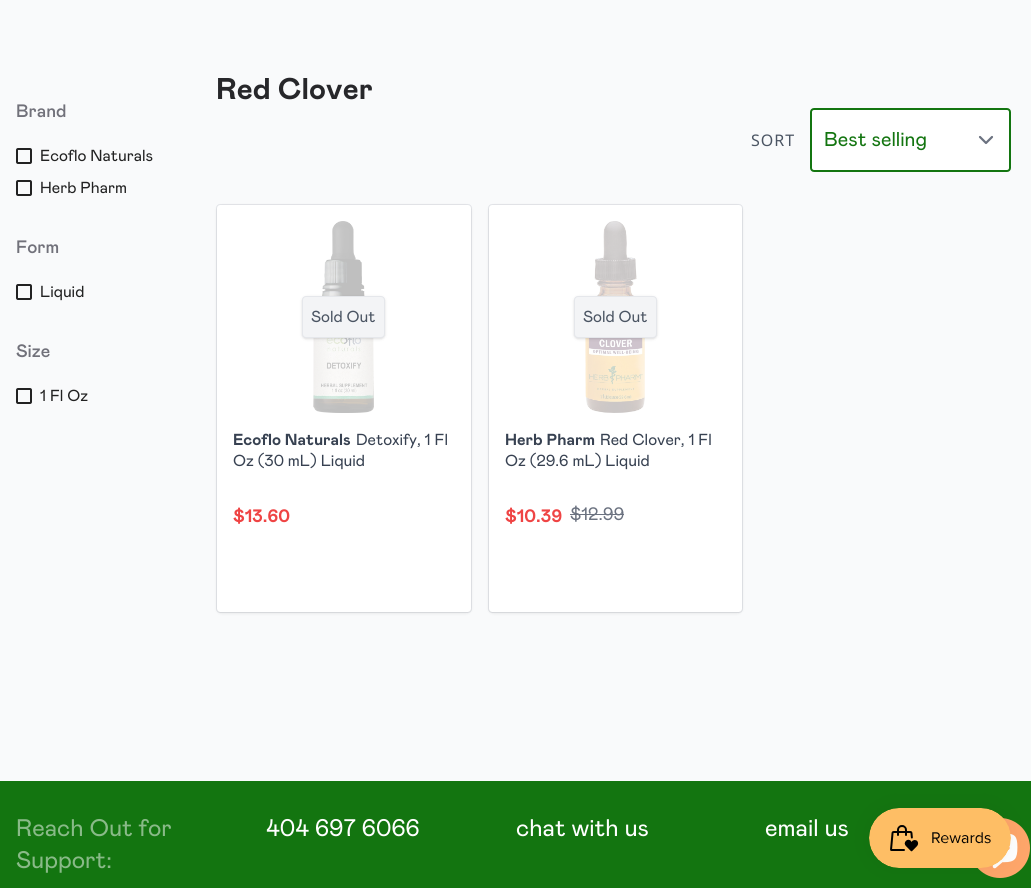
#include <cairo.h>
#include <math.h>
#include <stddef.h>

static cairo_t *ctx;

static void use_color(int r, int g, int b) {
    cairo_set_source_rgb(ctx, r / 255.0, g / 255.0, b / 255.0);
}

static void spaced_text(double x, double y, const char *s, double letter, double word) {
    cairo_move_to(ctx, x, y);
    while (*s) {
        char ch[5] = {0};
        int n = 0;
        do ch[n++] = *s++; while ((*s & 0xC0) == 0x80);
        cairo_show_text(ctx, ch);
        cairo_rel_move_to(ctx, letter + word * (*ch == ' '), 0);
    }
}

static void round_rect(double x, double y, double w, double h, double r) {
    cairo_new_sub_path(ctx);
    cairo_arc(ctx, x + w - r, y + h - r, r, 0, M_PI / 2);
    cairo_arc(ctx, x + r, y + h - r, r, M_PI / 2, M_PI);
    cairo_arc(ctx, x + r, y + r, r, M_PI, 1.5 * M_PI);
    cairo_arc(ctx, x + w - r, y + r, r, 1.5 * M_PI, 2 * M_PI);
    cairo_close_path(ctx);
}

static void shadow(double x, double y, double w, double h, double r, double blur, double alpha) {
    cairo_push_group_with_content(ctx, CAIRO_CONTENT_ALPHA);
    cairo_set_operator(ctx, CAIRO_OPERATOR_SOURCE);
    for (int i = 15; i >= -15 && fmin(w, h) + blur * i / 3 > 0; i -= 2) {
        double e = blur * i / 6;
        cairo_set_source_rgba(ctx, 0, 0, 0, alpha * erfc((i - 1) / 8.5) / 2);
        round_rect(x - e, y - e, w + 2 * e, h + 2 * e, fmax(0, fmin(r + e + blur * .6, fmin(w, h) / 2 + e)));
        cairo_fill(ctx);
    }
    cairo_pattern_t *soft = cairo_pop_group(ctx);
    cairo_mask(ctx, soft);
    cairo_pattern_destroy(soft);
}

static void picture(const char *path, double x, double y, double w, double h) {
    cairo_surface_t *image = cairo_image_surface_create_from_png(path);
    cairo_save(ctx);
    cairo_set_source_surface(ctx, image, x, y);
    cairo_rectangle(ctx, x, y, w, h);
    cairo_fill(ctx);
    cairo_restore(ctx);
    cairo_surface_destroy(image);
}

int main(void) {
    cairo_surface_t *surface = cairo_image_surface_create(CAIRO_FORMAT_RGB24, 1031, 888);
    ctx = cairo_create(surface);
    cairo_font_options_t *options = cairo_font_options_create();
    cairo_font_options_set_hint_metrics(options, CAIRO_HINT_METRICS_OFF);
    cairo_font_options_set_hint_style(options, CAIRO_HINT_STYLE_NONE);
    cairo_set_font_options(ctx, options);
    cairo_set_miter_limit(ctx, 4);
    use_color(249, 250, 251);
    cairo_paint(ctx);
    cairo_select_font_face(ctx, "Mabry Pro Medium", CAIRO_FONT_SLANT_NORMAL, CAIRO_FONT_WEIGHT_NORMAL);
    cairo_set_font_size(ctx, 18);
    use_color(113, 113, 122);
    cairo_move_to(ctx, 16, 117);
    cairo_show_text(ctx, "Brand");
    picture("img1.png", 16, 148, 16, 16);
    cairo_select_font_face(ctx, "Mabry", CAIRO_FONT_SLANT_NORMAL, CAIRO_FONT_WEIGHT_NORMAL);
    cairo_set_font_size(ctx, 16);
    use_color(34, 34, 34);
    cairo_move_to(ctx, 40, 161);
    cairo_show_text(ctx, "Ecoflo Naturals");
    picture("img1.png", 16, 180, 16, 16);
    cairo_move_to(ctx, 40, 193);
    cairo_show_text(ctx, "Herb Pharm");
    cairo_select_font_face(ctx, "Mabry Pro Medium", CAIRO_FONT_SLANT_NORMAL, CAIRO_FONT_WEIGHT_NORMAL);
    cairo_set_font_size(ctx, 18);
    use_color(113, 113, 122);
    cairo_move_to(ctx, 16, 253);
    cairo_show_text(ctx, "Form");
    picture("img1.png", 16, 284, 16, 16);
    cairo_select_font_face(ctx, "Mabry", CAIRO_FONT_SLANT_NORMAL, CAIRO_FONT_WEIGHT_NORMAL);
    cairo_set_font_size(ctx, 16);
    use_color(34, 34, 34);
    cairo_move_to(ctx, 40, 297);
    cairo_show_text(ctx, "Liquid");
    cairo_select_font_face(ctx, "Mabry Pro Medium", CAIRO_FONT_SLANT_NORMAL, CAIRO_FONT_WEIGHT_NORMAL);
    cairo_set_font_size(ctx, 18);
    use_color(113, 113, 122);
    cairo_move_to(ctx, 16, 357);
    cairo_show_text(ctx, "Size");
    picture("img1.png", 16, 388, 16, 16);
    cairo_select_font_face(ctx, "Mabry", CAIRO_FONT_SLANT_NORMAL, CAIRO_FONT_WEIGHT_NORMAL);
    cairo_set_font_size(ctx, 16);
    use_color(34, 34, 34);
    cairo_move_to(ctx, 40, 401);
    cairo_show_text(ctx, "1 Fl Oz");
    cairo_select_font_face(ctx, "Mabry", CAIRO_FONT_SLANT_NORMAL, CAIRO_FONT_WEIGHT_BOLD);
    cairo_set_font_size(ctx, 30);
    use_color(39, 39, 42);
    cairo_move_to(ctx, 216, 99);
    cairo_show_text(ctx, "Red Clover");
    cairo_select_font_face(ctx, "Noto Sans", CAIRO_FONT_SLANT_NORMAL, CAIRO_FONT_WEIGHT_NORMAL);
    cairo_set_font_size(ctx, 16);
    use_color(75, 85, 99);
    spaced_text(751, 146, "SORT", 1, 0);
    use_color(255, 255, 255);
    round_rect(810, 108, 201, 64, 4);
    cairo_fill(ctx);
    cairo_new_path(ctx);
    cairo_move_to(ctx, 980, 137);
    cairo_line_to(ctx, 986, 143);
    cairo_line_to(ctx, 992, 137);
    use_color(107, 114, 128);
    cairo_set_line_width(ctx, 2.2);
    cairo_set_line_cap(ctx, CAIRO_LINE_CAP_ROUND);
    cairo_set_line_join(ctx, CAIRO_LINE_JOIN_ROUND);
    cairo_stroke(ctx);
    round_rect(811, 109, 199, 62, 3);
    use_color(19, 117, 16);
    cairo_set_line_width(ctx, 2);
    cairo_set_line_cap(ctx, CAIRO_LINE_CAP_BUTT);
    cairo_set_line_join(ctx, CAIRO_LINE_JOIN_MITER);
    cairo_stroke(ctx);
    cairo_select_font_face(ctx, "Mabry", CAIRO_FONT_SLANT_NORMAL, CAIRO_FONT_WEIGHT_NORMAL);
    cairo_set_font_size(ctx, 20);
    cairo_move_to(ctx, 824, 146);
    cairo_show_text(ctx, "Best selling");
    use_color(255, 255, 255);
    round_rect(216.5, 204.5, 255, 408, 3.5);
    cairo_fill_preserve(ctx);
    use_color(229, 231, 235);
    cairo_set_line_width(ctx, 1);
    cairo_stroke(ctx);
    picture("img2.png", 313, 221, 61, 192);
    cairo_save(ctx);
    cairo_set_fill_rule(ctx, CAIRO_FILL_RULE_EVEN_ODD);
    cairo_new_path(ctx);
    cairo_move_to(ctx, 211, 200);
    cairo_line_to(ctx, 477, 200);
    cairo_line_to(ctx, 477, 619);
    cairo_line_to(ctx, 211, 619);
    cairo_close_path(ctx);
    cairo_move_to(ctx, 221, 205);
    cairo_line_to(ctx, 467, 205);
    cairo_curve_to(ctx, 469, 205, 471, 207, 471, 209);
    cairo_line_to(ctx, 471, 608);
    cairo_curve_to(ctx, 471, 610, 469, 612, 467, 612);
    cairo_line_to(ctx, 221, 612);
    cairo_curve_to(ctx, 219, 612, 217, 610, 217, 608);
    cairo_line_to(ctx, 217, 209);
    cairo_curve_to(ctx, 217, 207, 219, 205, 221, 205);
    cairo_close_path(ctx);
    cairo_clip(ctx);
    use_color(0, 0, 0);
    shadow(217, 206, 254, 407, 4, 1.5, 0.1);
    cairo_restore(ctx);
    use_color(0, 0, 0);
    shadow(303, 298, 81, 40, 3, 1, 0.1);
    shadow(302, 297, 83, 42, 4, 1.5, 0.1);
    use_color(243, 244, 246);
    round_rect(302.5, 296.5, 82, 41, 3.5);
    cairo_fill_preserve(ctx);
    use_color(229, 231, 235);
    cairo_stroke(ctx);
    cairo_set_font_size(ctx, 16);
    use_color(75, 85, 99);
    cairo_move_to(ctx, 311, 322);
    cairo_show_text(ctx, "Sold Out");
    cairo_select_font_face(ctx, "Mabry", CAIRO_FONT_SLANT_NORMAL, CAIRO_FONT_WEIGHT_BOLD);
    use_color(55, 65, 81);
    cairo_move_to(ctx, 233, 445);
    cairo_show_text(ctx, "Ecoflo Naturals");
    cairo_select_font_face(ctx, "Mabry", CAIRO_FONT_SLANT_NORMAL, CAIRO_FONT_WEIGHT_NORMAL);
    cairo_move_to(ctx, 356, 445);
    cairo_show_text(ctx, "Detoxify, 1 Fl");
    cairo_move_to(ctx, 233, 466);
    cairo_show_text(ctx, "Oz (30 mL) Liquid");
    cairo_select_font_face(ctx, "Mabry", CAIRO_FONT_SLANT_NORMAL, CAIRO_FONT_WEIGHT_BOLD);
    cairo_set_font_size(ctx, 18);
    use_color(239, 68, 68);
    cairo_move_to(ctx, 233, 522);
    cairo_show_text(ctx, "$13.60");
    use_color(255, 255, 255);
    round_rect(488.5, 204.5, 254, 408, 3.5);
    cairo_fill_preserve(ctx);
    use_color(229, 231, 235);
    cairo_stroke(ctx);
    picture("img3.png", 585, 221, 60, 192);
    use_color(107, 114, 128);
    cairo_rectangle(ctx, 570, 514, 54, 1);
    cairo_fill(ctx);
    cairo_save(ctx);
    cairo_set_fill_rule(ctx, CAIRO_FILL_RULE_EVEN_ODD);
    cairo_new_path(ctx);
    cairo_move_to(ctx, 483, 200);
    cairo_line_to(ctx, 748, 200);
    cairo_line_to(ctx, 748, 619);
    cairo_line_to(ctx, 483, 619);
    cairo_close_path(ctx);
    cairo_move_to(ctx, 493, 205);
    cairo_line_to(ctx, 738, 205);
    cairo_curve_to(ctx, 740, 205, 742, 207, 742, 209);
    cairo_line_to(ctx, 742, 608);
    cairo_curve_to(ctx, 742, 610, 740, 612, 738, 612);
    cairo_line_to(ctx, 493, 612);
    cairo_curve_to(ctx, 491, 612, 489, 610, 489, 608);
    cairo_line_to(ctx, 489, 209);
    cairo_curve_to(ctx, 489, 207, 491, 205, 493, 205);
    cairo_close_path(ctx);
    cairo_clip(ctx);
    use_color(0, 0, 0);
    shadow(489, 206, 253, 407, 4, 1.5, 0.1);
    cairo_restore(ctx);
    use_color(0, 0, 0);
    shadow(575, 298, 81, 40, 3, 1, 0.1);
    shadow(574, 297, 83, 42, 4, 1.5, 0.1);
    use_color(243, 244, 246);
    round_rect(574.5, 296.5, 82, 41, 3.5);
    cairo_fill_preserve(ctx);
    use_color(229, 231, 235);
    cairo_stroke(ctx);
    cairo_select_font_face(ctx, "Mabry", CAIRO_FONT_SLANT_NORMAL, CAIRO_FONT_WEIGHT_NORMAL);
    cairo_set_font_size(ctx, 16);
    use_color(75, 85, 99);
    cairo_move_to(ctx, 583, 322);
    cairo_show_text(ctx, "Sold Out");
    cairo_select_font_face(ctx, "Mabry", CAIRO_FONT_SLANT_NORMAL, CAIRO_FONT_WEIGHT_BOLD);
    use_color(55, 65, 81);
    cairo_move_to(ctx, 505, 445);
    cairo_show_text(ctx, "Herb Pharm");
    cairo_select_font_face(ctx, "Mabry", CAIRO_FONT_SLANT_NORMAL, CAIRO_FONT_WEIGHT_NORMAL);
    cairo_move_to(ctx, 600, 445);
    cairo_show_text(ctx, "Red Clover, 1 Fl");
    cairo_move_to(ctx, 505, 466);
    cairo_show_text(ctx, "Oz (29.6 mL) Liquid");
    cairo_select_font_face(ctx, "Mabry", CAIRO_FONT_SLANT_NORMAL, CAIRO_FONT_WEIGHT_BOLD);
    cairo_set_font_size(ctx, 18);
    use_color(239, 68, 68);
    cairo_move_to(ctx, 505, 522);
    cairo_show_text(ctx, "$10.39");
    cairo_select_font_face(ctx, "Mabry", CAIRO_FONT_SLANT_NORMAL, CAIRO_FONT_WEIGHT_NORMAL);
    use_color(107, 114, 128);
    cairo_move_to(ctx, 570, 520);
    cairo_show_text(ctx, "$12.99");
    use_color(19, 117, 16);
    cairo_rectangle(ctx, 0, 781, 1031, 107);
    cairo_fill(ctx);
    cairo_set_font_size(ctx, 24);
    use_color(137, 186, 136);
    cairo_move_to(ctx, 16, 836);
    cairo_show_text(ctx, "Reach Out for");
    cairo_move_to(ctx, 16, 868);
    cairo_show_text(ctx, "Support:");
    use_color(255, 255, 255);
    cairo_move_to(ctx, 266, 836);
    cairo_show_text(ctx, "404 697 6066");
    cairo_move_to(ctx, 516, 836);
    cairo_show_text(ctx, "chat with us");
    cairo_move_to(ctx, 765, 836);
    cairo_show_text(ctx, "email us");
    use_color(255, 166, 106);
    cairo_new_path(ctx);
    cairo_arc(ctx, 1000, 848, 30, 0, 2 * M_PI);
    cairo_fill(ctx);
    picture("img5.png", 992, 834, 26, 35);
    use_color(0, 0, 0);
    shadow(869, 808, 142, 60, 30, 12.5, 0.05);
    picture("img4.png", 869, 808, 142, 60);
    cairo_surface_write_to_png(surface, "result.png");
    cairo_font_options_destroy(options);
    cairo_destroy(ctx);
    cairo_surface_destroy(surface);
    return 0;
}
